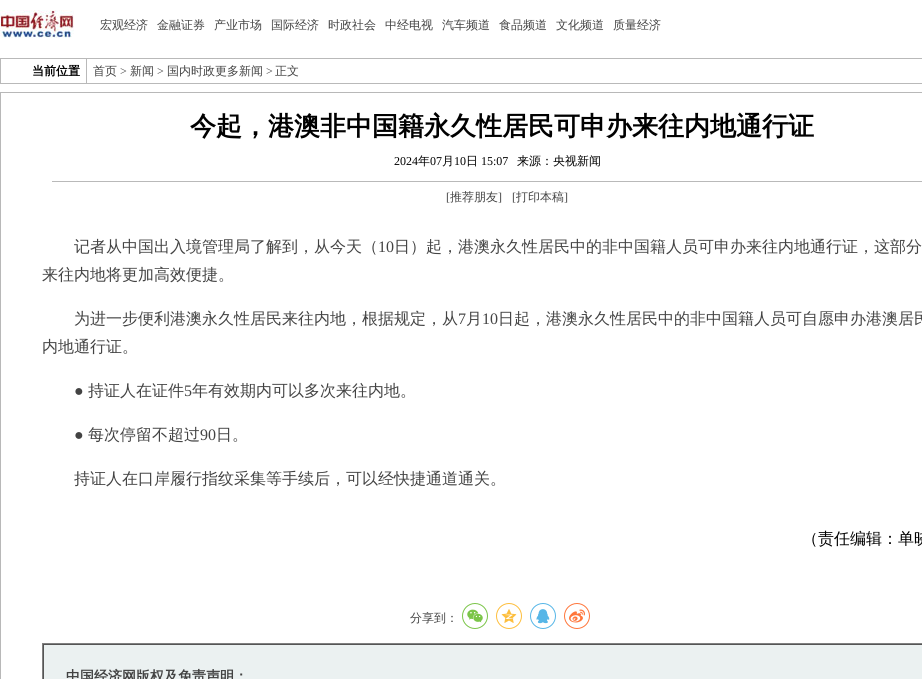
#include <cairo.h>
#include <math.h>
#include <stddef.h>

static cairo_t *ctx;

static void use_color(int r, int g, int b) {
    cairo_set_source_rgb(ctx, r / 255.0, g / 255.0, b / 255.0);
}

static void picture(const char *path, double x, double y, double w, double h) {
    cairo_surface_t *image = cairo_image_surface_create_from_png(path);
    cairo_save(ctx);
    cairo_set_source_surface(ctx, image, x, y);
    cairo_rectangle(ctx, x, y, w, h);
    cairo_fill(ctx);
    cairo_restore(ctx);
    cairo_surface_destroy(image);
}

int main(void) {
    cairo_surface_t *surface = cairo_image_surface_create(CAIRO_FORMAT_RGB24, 922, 679);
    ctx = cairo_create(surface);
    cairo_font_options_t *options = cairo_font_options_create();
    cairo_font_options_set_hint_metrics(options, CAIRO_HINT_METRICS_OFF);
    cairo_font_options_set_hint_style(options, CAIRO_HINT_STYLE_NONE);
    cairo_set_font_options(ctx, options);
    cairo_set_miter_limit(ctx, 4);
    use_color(255, 255, 255);
    cairo_paint(ctx);
    picture("img1.png", 0, 10, 74, 28);
    cairo_select_font_face(ctx, "WenQuanYi Zen Hei Medium", CAIRO_FONT_SLANT_NORMAL, CAIRO_FONT_WEIGHT_NORMAL);
    cairo_set_font_size(ctx, 12);
    use_color(67, 67, 67);
    cairo_move_to(ctx, 100, 29);
    cairo_show_text(ctx, "宏观经济");
    cairo_move_to(ctx, 157, 29);
    cairo_show_text(ctx, "金融证券");
    cairo_move_to(ctx, 214, 29);
    cairo_show_text(ctx, "产业市场");
    cairo_move_to(ctx, 271, 29);
    cairo_show_text(ctx, "国际经济");
    cairo_move_to(ctx, 328, 29);
    cairo_show_text(ctx, "时政社会");
    cairo_move_to(ctx, 385, 29);
    cairo_show_text(ctx, "中经电视");
    cairo_move_to(ctx, 442, 29);
    cairo_show_text(ctx, "汽车频道");
    cairo_move_to(ctx, 499, 29);
    cairo_show_text(ctx, "食品频道");
    cairo_move_to(ctx, 556, 29);
    cairo_show_text(ctx, "文化频道");
    cairo_move_to(ctx, 613, 29);
    cairo_show_text(ctx, "质量经济");
    use_color(185, 185, 185);
    cairo_rectangle(ctx, 0, 58, 922, 26);
    cairo_fill(ctx);
    use_color(255, 255, 255);
    cairo_rectangle(ctx, 1, 59, 85, 24);
    cairo_fill(ctx);
    cairo_select_font_face(ctx, "WenQuanYi Zen Hei", CAIRO_FONT_SLANT_NORMAL, CAIRO_FONT_WEIGHT_BOLD);
    use_color(0, 0, 0);
    cairo_move_to(ctx, 32, 75);
    cairo_show_text(ctx, "当前位置");
    use_color(255, 255, 255);
    cairo_rectangle(ctx, 87, 59, 835, 24);
    cairo_fill(ctx);
    cairo_select_font_face(ctx, "WenQuanYi Zen Hei Medium", CAIRO_FONT_SLANT_NORMAL, CAIRO_FONT_WEIGHT_NORMAL);
    use_color(67, 67, 67);
    cairo_move_to(ctx, 93, 75);
    cairo_show_text(ctx, "首页");
    cairo_select_font_face(ctx, "Liberation Serif", CAIRO_FONT_SLANT_NORMAL, CAIRO_FONT_WEIGHT_NORMAL);
    cairo_move_to(ctx, 120, 75);
    cairo_show_text(ctx, ">");
    cairo_select_font_face(ctx, "WenQuanYi Zen Hei Medium", CAIRO_FONT_SLANT_NORMAL, CAIRO_FONT_WEIGHT_NORMAL);
    cairo_move_to(ctx, 130, 75);
    cairo_show_text(ctx, "新闻");
    cairo_select_font_face(ctx, "Liberation Serif", CAIRO_FONT_SLANT_NORMAL, CAIRO_FONT_WEIGHT_NORMAL);
    cairo_move_to(ctx, 157, 75);
    cairo_show_text(ctx, ">");
    cairo_select_font_face(ctx, "WenQuanYi Zen Hei Medium", CAIRO_FONT_SLANT_NORMAL, CAIRO_FONT_WEIGHT_NORMAL);
    cairo_move_to(ctx, 167, 75);
    cairo_show_text(ctx, "国内时政更多新闻");
    cairo_select_font_face(ctx, "Liberation Serif", CAIRO_FONT_SLANT_NORMAL, CAIRO_FONT_WEIGHT_NORMAL);
    cairo_move_to(ctx, 266, 75);
    cairo_show_text(ctx, ">");
    cairo_select_font_face(ctx, "WenQuanYi Zen Hei Medium", CAIRO_FONT_SLANT_NORMAL, CAIRO_FONT_WEIGHT_NORMAL);
    cairo_move_to(ctx, 275, 75);
    cairo_show_text(ctx, "正文");
    cairo_rectangle(ctx, 0.5, 92.5, 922, 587);
    use_color(184, 184, 184);
    cairo_set_line_width(ctx, 1);
    cairo_stroke(ctx);
    cairo_select_font_face(ctx, "WenQuanYi Zen Hei", CAIRO_FONT_SLANT_NORMAL, CAIRO_FONT_WEIGHT_BOLD);
    cairo_set_font_size(ctx, 26);
    use_color(0, 0, 0);
    cairo_move_to(ctx, 190, 135);
    cairo_show_text(ctx, "今起，港澳非中国籍永久性居民可申办来往内地通行证");
    cairo_select_font_face(ctx, "Liberation Serif", CAIRO_FONT_SLANT_NORMAL, CAIRO_FONT_WEIGHT_NORMAL);
    cairo_set_font_size(ctx, 12);
    cairo_move_to(ctx, 394, 165);
    cairo_show_text(ctx, "2024");
    cairo_select_font_face(ctx, "WenQuanYi Zen Hei Medium", CAIRO_FONT_SLANT_NORMAL, CAIRO_FONT_WEIGHT_NORMAL);
    cairo_move_to(ctx, 418, 165);
    cairo_show_text(ctx, "年");
    cairo_select_font_face(ctx, "Liberation Serif", CAIRO_FONT_SLANT_NORMAL, CAIRO_FONT_WEIGHT_NORMAL);
    cairo_move_to(ctx, 430, 165);
    cairo_show_text(ctx, "07");
    cairo_select_font_face(ctx, "WenQuanYi Zen Hei Medium", CAIRO_FONT_SLANT_NORMAL, CAIRO_FONT_WEIGHT_NORMAL);
    cairo_move_to(ctx, 442, 165);
    cairo_show_text(ctx, "月");
    cairo_select_font_face(ctx, "Liberation Serif", CAIRO_FONT_SLANT_NORMAL, CAIRO_FONT_WEIGHT_NORMAL);
    cairo_move_to(ctx, 454, 165);
    cairo_show_text(ctx, "10");
    cairo_select_font_face(ctx, "WenQuanYi Zen Hei Medium", CAIRO_FONT_SLANT_NORMAL, CAIRO_FONT_WEIGHT_NORMAL);
    cairo_move_to(ctx, 466, 165);
    cairo_show_text(ctx, "日");
    cairo_select_font_face(ctx, "Liberation Serif", CAIRO_FONT_SLANT_NORMAL, CAIRO_FONT_WEIGHT_NORMAL);
    cairo_move_to(ctx, 481, 165);
    cairo_show_text(ctx, "15:07");
    cairo_select_font_face(ctx, "WenQuanYi Zen Hei Medium", CAIRO_FONT_SLANT_NORMAL, CAIRO_FONT_WEIGHT_NORMAL);
    cairo_move_to(ctx, 517, 165);
    cairo_show_text(ctx, "来源：央视新闻");
    use_color(185, 185, 185);
    cairo_rectangle(ctx, 52, 181, 870, 1);
    cairo_fill(ctx);
    cairo_select_font_face(ctx, "Liberation Serif", CAIRO_FONT_SLANT_NORMAL, CAIRO_FONT_WEIGHT_NORMAL);
    use_color(67, 67, 67);
    cairo_move_to(ctx, 446, 201);
    cairo_show_text(ctx, "[");
    cairo_select_font_face(ctx, "WenQuanYi Zen Hei Medium", CAIRO_FONT_SLANT_NORMAL, CAIRO_FONT_WEIGHT_NORMAL);
    cairo_move_to(ctx, 450, 201);
    cairo_show_text(ctx, "推荐朋友");
    cairo_select_font_face(ctx, "Liberation Serif", CAIRO_FONT_SLANT_NORMAL, CAIRO_FONT_WEIGHT_NORMAL);
    cairo_move_to(ctx, 498, 201);
    cairo_show_text(ctx, "]");
    cairo_move_to(ctx, 512, 201);
    cairo_show_text(ctx, "[");
    cairo_select_font_face(ctx, "WenQuanYi Zen Hei Medium", CAIRO_FONT_SLANT_NORMAL, CAIRO_FONT_WEIGHT_NORMAL);
    cairo_move_to(ctx, 516, 201);
    cairo_show_text(ctx, "打印本稿");
    cairo_select_font_face(ctx, "Liberation Serif", CAIRO_FONT_SLANT_NORMAL, CAIRO_FONT_WEIGHT_NORMAL);
    cairo_move_to(ctx, 564, 201);
    cairo_show_text(ctx, "]");
    cairo_select_font_face(ctx, "WenQuanYi Zen Hei Medium", CAIRO_FONT_SLANT_NORMAL, CAIRO_FONT_WEIGHT_NORMAL);
    cairo_set_font_size(ctx, 16);
    cairo_move_to(ctx, 74, 252);
    cairo_show_text(ctx, "记者从中国出入境管理局了解到，从今天（");
    cairo_select_font_face(ctx, "Liberation Serif", CAIRO_FONT_SLANT_NORMAL, CAIRO_FONT_WEIGHT_NORMAL);
    cairo_move_to(ctx, 378, 252);
    cairo_show_text(ctx, "10");
    cairo_select_font_face(ctx, "WenQuanYi Zen Hei Medium", CAIRO_FONT_SLANT_NORMAL, CAIRO_FONT_WEIGHT_NORMAL);
    cairo_move_to(ctx, 394, 252);
    cairo_show_text(ctx, "日）起，港澳永久性居民中的非中国籍人员可申办来往内地通行证，这部分");
    cairo_move_to(ctx, 42, 280);
    cairo_show_text(ctx, "来往内地将更加高效便捷。");
    cairo_move_to(ctx, 74, 324);
    cairo_show_text(ctx, "为进一步便利港澳永久性居民来往内地，根据规定，从");
    cairo_select_font_face(ctx, "Liberation Serif", CAIRO_FONT_SLANT_NORMAL, CAIRO_FONT_WEIGHT_NORMAL);
    cairo_move_to(ctx, 458, 324);
    cairo_show_text(ctx, "7");
    cairo_select_font_face(ctx, "WenQuanYi Zen Hei Medium", CAIRO_FONT_SLANT_NORMAL, CAIRO_FONT_WEIGHT_NORMAL);
    cairo_move_to(ctx, 466, 324);
    cairo_show_text(ctx, "月");
    cairo_select_font_face(ctx, "Liberation Serif", CAIRO_FONT_SLANT_NORMAL, CAIRO_FONT_WEIGHT_NORMAL);
    cairo_move_to(ctx, 482, 324);
    cairo_show_text(ctx, "10");
    cairo_select_font_face(ctx, "WenQuanYi Zen Hei Medium", CAIRO_FONT_SLANT_NORMAL, CAIRO_FONT_WEIGHT_NORMAL);
    cairo_move_to(ctx, 498, 324);
    cairo_show_text(ctx, "日起，港澳永久性居民中的非中国籍人员可自愿申办港澳居民");
    cairo_move_to(ctx, 42, 352);
    cairo_show_text(ctx, "内地通行证。");
    cairo_select_font_face(ctx, "Liberation Serif", CAIRO_FONT_SLANT_NORMAL, CAIRO_FONT_WEIGHT_NORMAL);
    cairo_move_to(ctx, 74, 396);
    cairo_show_text(ctx, "●");
    cairo_select_font_face(ctx, "WenQuanYi Zen Hei Medium", CAIRO_FONT_SLANT_NORMAL, CAIRO_FONT_WEIGHT_NORMAL);
    cairo_move_to(ctx, 88, 396);
    cairo_show_text(ctx, "持证人在证件");
    cairo_select_font_face(ctx, "Liberation Serif", CAIRO_FONT_SLANT_NORMAL, CAIRO_FONT_WEIGHT_NORMAL);
    cairo_move_to(ctx, 184, 396);
    cairo_show_text(ctx, "5");
    cairo_select_font_face(ctx, "WenQuanYi Zen Hei Medium", CAIRO_FONT_SLANT_NORMAL, CAIRO_FONT_WEIGHT_NORMAL);
    cairo_move_to(ctx, 192, 396);
    cairo_show_text(ctx, "年有效期内可以多次来往内地。");
    cairo_select_font_face(ctx, "Liberation Serif", CAIRO_FONT_SLANT_NORMAL, CAIRO_FONT_WEIGHT_NORMAL);
    cairo_move_to(ctx, 74, 440);
    cairo_show_text(ctx, "●");
    cairo_select_font_face(ctx, "WenQuanYi Zen Hei Medium", CAIRO_FONT_SLANT_NORMAL, CAIRO_FONT_WEIGHT_NORMAL);
    cairo_move_to(ctx, 88, 440);
    cairo_show_text(ctx, "每次停留不超过");
    cairo_select_font_face(ctx, "Liberation Serif", CAIRO_FONT_SLANT_NORMAL, CAIRO_FONT_WEIGHT_NORMAL);
    cairo_move_to(ctx, 200, 440);
    cairo_show_text(ctx, "90");
    cairo_select_font_face(ctx, "WenQuanYi Zen Hei Medium", CAIRO_FONT_SLANT_NORMAL, CAIRO_FONT_WEIGHT_NORMAL);
    cairo_move_to(ctx, 216, 440);
    cairo_show_text(ctx, "日。");
    cairo_move_to(ctx, 74, 484);
    cairo_show_text(ctx, "持证人在口岸履行指纹采集等手续后，可以经快捷通道通关。");
    use_color(0, 0, 0);
    cairo_move_to(ctx, 802, 544);
    cairo_show_text(ctx, "（责任编辑：单晓");
    cairo_set_font_size(ctx, 12);
    use_color(67, 67, 67);
    cairo_move_to(ctx, 410, 622);
    cairo_show_text(ctx, "分享到：");
    cairo_new_path(ctx);
    cairo_arc(ctx, 475, 616, 12.5, 0, 2 * M_PI);
    use_color(123, 197, 73);
    cairo_stroke(ctx);
    picture("img2.png", 467, 609, 16, 14);
    cairo_arc(ctx, 509, 616, 12.5, 0, 2 * M_PI);
    use_color(253, 190, 61);
    cairo_stroke(ctx);
    picture("img3.png", 501, 609, 16, 14);
    cairo_arc(ctx, 543, 616, 12.5, 0, 2 * M_PI);
    use_color(86, 182, 231);
    cairo_stroke(ctx);
    picture("img4.png", 536, 609, 14, 15);
    cairo_arc(ctx, 577, 616, 12.5, 0, 2 * M_PI);
    use_color(255, 118, 59);
    cairo_stroke(ctx);
    picture("img5.png", 569, 609, 16, 14);
    use_color(235, 241, 241);
    cairo_rectangle(ctx, 44, 645, 878, 34);
    cairo_fill(ctx);
    use_color(128, 128, 128);
    cairo_rectangle(ctx, 42, 643, 880, 1);
    cairo_fill(ctx);
    cairo_rectangle(ctx, 42, 643, 1, 36);
    cairo_fill(ctx);
    use_color(85, 85, 85);
    cairo_rectangle(ctx, 43, 644, 879, 1);
    cairo_fill(ctx);
    cairo_rectangle(ctx, 43, 644, 1, 35);
    cairo_fill(ctx);
    cairo_select_font_face(ctx, "WenQuanYi Zen Hei", CAIRO_FONT_SLANT_NORMAL, CAIRO_FONT_WEIGHT_BOLD);
    cairo_set_font_size(ctx, 14);
    use_color(67, 67, 67);
    cairo_move_to(ctx, 66, 681);
    cairo_show_text(ctx, "中国经济网版权及免责声明：");
    cairo_surface_write_to_png(surface, "result.png");
    cairo_font_options_destroy(options);
    cairo_destroy(ctx);
    cairo_surface_destroy(surface);
    return 0;
}
